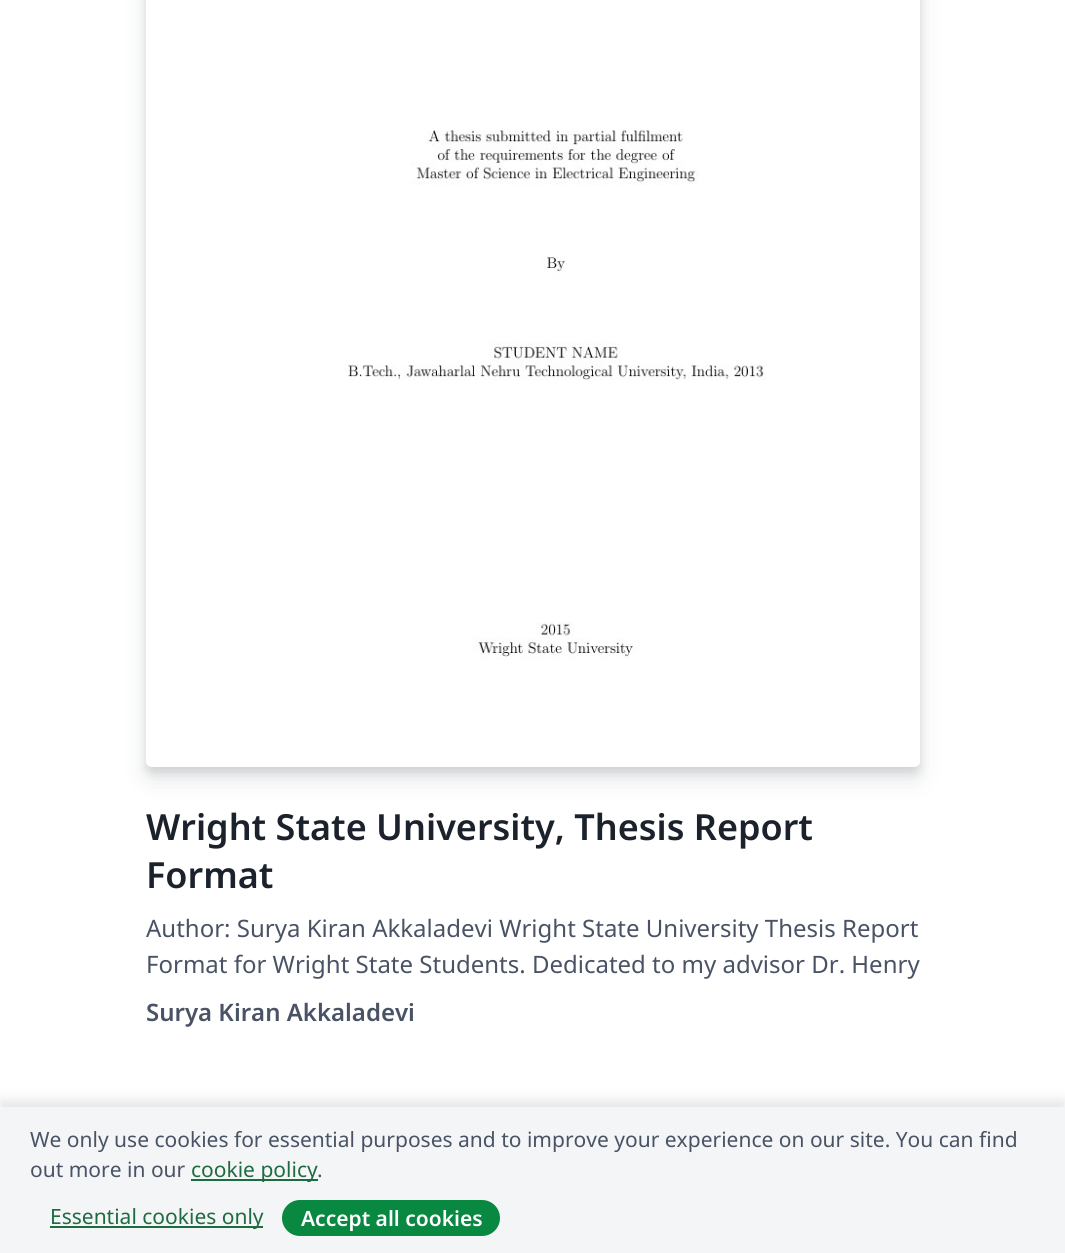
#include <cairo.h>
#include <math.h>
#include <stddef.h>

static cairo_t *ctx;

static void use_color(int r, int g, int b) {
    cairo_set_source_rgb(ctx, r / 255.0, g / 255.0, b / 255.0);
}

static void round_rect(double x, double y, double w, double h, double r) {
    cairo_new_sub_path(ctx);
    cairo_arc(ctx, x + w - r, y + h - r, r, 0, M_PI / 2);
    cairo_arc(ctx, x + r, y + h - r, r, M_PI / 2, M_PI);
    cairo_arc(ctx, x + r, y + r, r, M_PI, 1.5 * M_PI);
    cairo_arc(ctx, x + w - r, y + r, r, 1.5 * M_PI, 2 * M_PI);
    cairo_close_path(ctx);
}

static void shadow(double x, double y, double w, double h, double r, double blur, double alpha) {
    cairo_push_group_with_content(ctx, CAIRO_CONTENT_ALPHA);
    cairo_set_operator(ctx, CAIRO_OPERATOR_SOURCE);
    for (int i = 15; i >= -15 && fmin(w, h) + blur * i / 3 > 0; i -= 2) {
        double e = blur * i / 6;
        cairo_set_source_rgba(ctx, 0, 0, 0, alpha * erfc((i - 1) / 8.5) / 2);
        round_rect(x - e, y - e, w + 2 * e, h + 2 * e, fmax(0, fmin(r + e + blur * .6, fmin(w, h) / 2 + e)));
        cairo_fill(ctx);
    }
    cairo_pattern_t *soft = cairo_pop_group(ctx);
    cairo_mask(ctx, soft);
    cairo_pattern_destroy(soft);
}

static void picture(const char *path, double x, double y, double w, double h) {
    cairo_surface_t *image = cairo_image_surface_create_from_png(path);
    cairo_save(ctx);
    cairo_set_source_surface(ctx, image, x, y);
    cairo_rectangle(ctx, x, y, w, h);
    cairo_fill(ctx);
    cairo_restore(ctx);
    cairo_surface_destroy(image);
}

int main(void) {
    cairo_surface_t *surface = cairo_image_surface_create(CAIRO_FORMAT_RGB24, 1065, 1253);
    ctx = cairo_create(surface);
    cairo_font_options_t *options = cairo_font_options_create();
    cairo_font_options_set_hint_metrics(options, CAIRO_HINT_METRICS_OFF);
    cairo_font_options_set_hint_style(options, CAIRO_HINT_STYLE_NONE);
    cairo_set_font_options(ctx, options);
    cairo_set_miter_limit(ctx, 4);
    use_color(255, 255, 255);
    cairo_paint(ctx);
    cairo_save(ctx);
    cairo_set_fill_rule(ctx, CAIRO_FILL_RULE_EVEN_ODD);
    cairo_new_path(ctx);
    cairo_move_to(ctx, 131, 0);
    cairo_line_to(ctx, 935, 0);
    cairo_line_to(ctx, 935, 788);
    cairo_line_to(ctx, 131, 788);
    cairo_close_path(ctx);
    cairo_move_to(ctx, 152, -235);
    cairo_line_to(ctx, 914, -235);
    cairo_curve_to(ctx, 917.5, -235, 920, -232.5, 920, -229);
    cairo_line_to(ctx, 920, 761);
    cairo_curve_to(ctx, 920, 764.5, 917.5, 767, 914, 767);
    cairo_line_to(ctx, 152, 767);
    cairo_curve_to(ctx, 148.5, 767, 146, 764.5, 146, 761);
    cairo_line_to(ctx, 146, -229);
    cairo_curve_to(ctx, 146, -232.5, 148.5, -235, 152, -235);
    cairo_close_path(ctx);
    cairo_clip(ctx);
    use_color(30, 37, 48);
    shadow(146, -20, 774, 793, 6, 4.5, 0.12);
    cairo_restore(ctx);
    cairo_save(ctx);
    cairo_set_fill_rule(ctx, CAIRO_FILL_RULE_EVEN_ODD);
    cairo_new_path(ctx);
    cairo_move_to(ctx, 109, 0);
    cairo_line_to(ctx, 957, 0);
    cairo_line_to(ctx, 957, 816);
    cairo_line_to(ctx, 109, 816);
    cairo_close_path(ctx);
    cairo_move_to(ctx, 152, -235);
    cairo_line_to(ctx, 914, -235);
    cairo_curve_to(ctx, 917.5, -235, 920, -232.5, 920, -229);
    cairo_line_to(ctx, 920, 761);
    cairo_curve_to(ctx, 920, 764.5, 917.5, 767, 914, 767);
    cairo_line_to(ctx, 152, 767);
    cairo_curve_to(ctx, 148.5, 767, 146, 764.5, 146, 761);
    cairo_line_to(ctx, 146, -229);
    cairo_curve_to(ctx, 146, -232.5, 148.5, -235, 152, -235);
    cairo_close_path(ctx);
    cairo_clip(ctx);
    use_color(30, 37, 48);
    shadow(146, -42, 774, 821, 6, 12, 0.12);
    cairo_restore(ctx);
    picture("img1.png", 348, 130, 418, 530);
    cairo_select_font_face(ctx, "Noto Sans SemiBold", CAIRO_FONT_SLANT_NORMAL, CAIRO_FONT_WEIGHT_NORMAL);
    cairo_set_font_size(ctx, 36);
    use_color(27, 34, 44);
    cairo_move_to(ctx, 146, 840);
    cairo_show_text(ctx, "Wright State University, Thesis Report");
    cairo_move_to(ctx, 146, 888);
    cairo_show_text(ctx, "Format");
    cairo_select_font_face(ctx, "Noto Sans", CAIRO_FONT_SLANT_NORMAL, CAIRO_FONT_WEIGHT_NORMAL);
    cairo_set_font_size(ctx, 24);
    use_color(73, 83, 101);
    cairo_move_to(ctx, 146, 937);
    cairo_show_text(ctx, "Author: Surya Kiran Akkaladevi Wright State University Thesis Report");
    cairo_move_to(ctx, 146, 973);
    cairo_show_text(ctx, "Format for Wright State Students. Dedicated to my advisor Dr. Henry");
    cairo_select_font_face(ctx, "Noto Sans SemiBold", CAIRO_FONT_SLANT_NORMAL, CAIRO_FONT_WEIGHT_NORMAL);
    cairo_move_to(ctx, 146, 1021);
    cairo_show_text(ctx, "Surya Kiran Akkaladevi");
    use_color(0, 0, 0);
    shadow(0, 1100, 1065, 147, 0, 6, 0.1);
    use_color(244, 245, 246);
    cairo_rectangle(ctx, 0, 1107, 1065, 146);
    cairo_fill(ctx);
    cairo_select_font_face(ctx, "Noto Sans", CAIRO_FONT_SLANT_NORMAL, CAIRO_FONT_WEIGHT_NORMAL);
    cairo_set_font_size(ctx, 21);
    use_color(73, 83, 101);
    cairo_move_to(ctx, 30, 1147);
    cairo_show_text(ctx, "We only use cookies for essential purposes and to improve your experience on our site. You can find");
    cairo_move_to(ctx, 30, 1177);
    cairo_show_text(ctx, "out more in our");
    use_color(30, 107, 65);
    cairo_rectangle(ctx, 191, 1179, 127, 2);
    cairo_fill(ctx);
    cairo_move_to(ctx, 191, 1177);
    cairo_show_text(ctx, "cookie policy");
    use_color(73, 83, 101);
    cairo_move_to(ctx, 317, 1177);
    cairo_show_text(ctx, ".");
    use_color(30, 107, 65);
    cairo_rectangle(ctx, 50, 1226, 213, 2);
    cairo_fill(ctx);
    cairo_move_to(ctx, 50, 1224);
    cairo_show_text(ctx, "Essential cookies only");
    use_color(9, 136, 66);
    round_rect(282, 1200, 218, 36, 18);
    cairo_fill(ctx);
    cairo_select_font_face(ctx, "Noto Sans SemiBold", CAIRO_FONT_SLANT_NORMAL, CAIRO_FONT_WEIGHT_NORMAL);
    use_color(255, 255, 255);
    cairo_move_to(ctx, 301, 1226);
    cairo_show_text(ctx, "Accept all cookies");
    cairo_surface_write_to_png(surface, "result.png");
    cairo_font_options_destroy(options);
    cairo_destroy(ctx);
    cairo_surface_destroy(surface);
    return 0;
}
